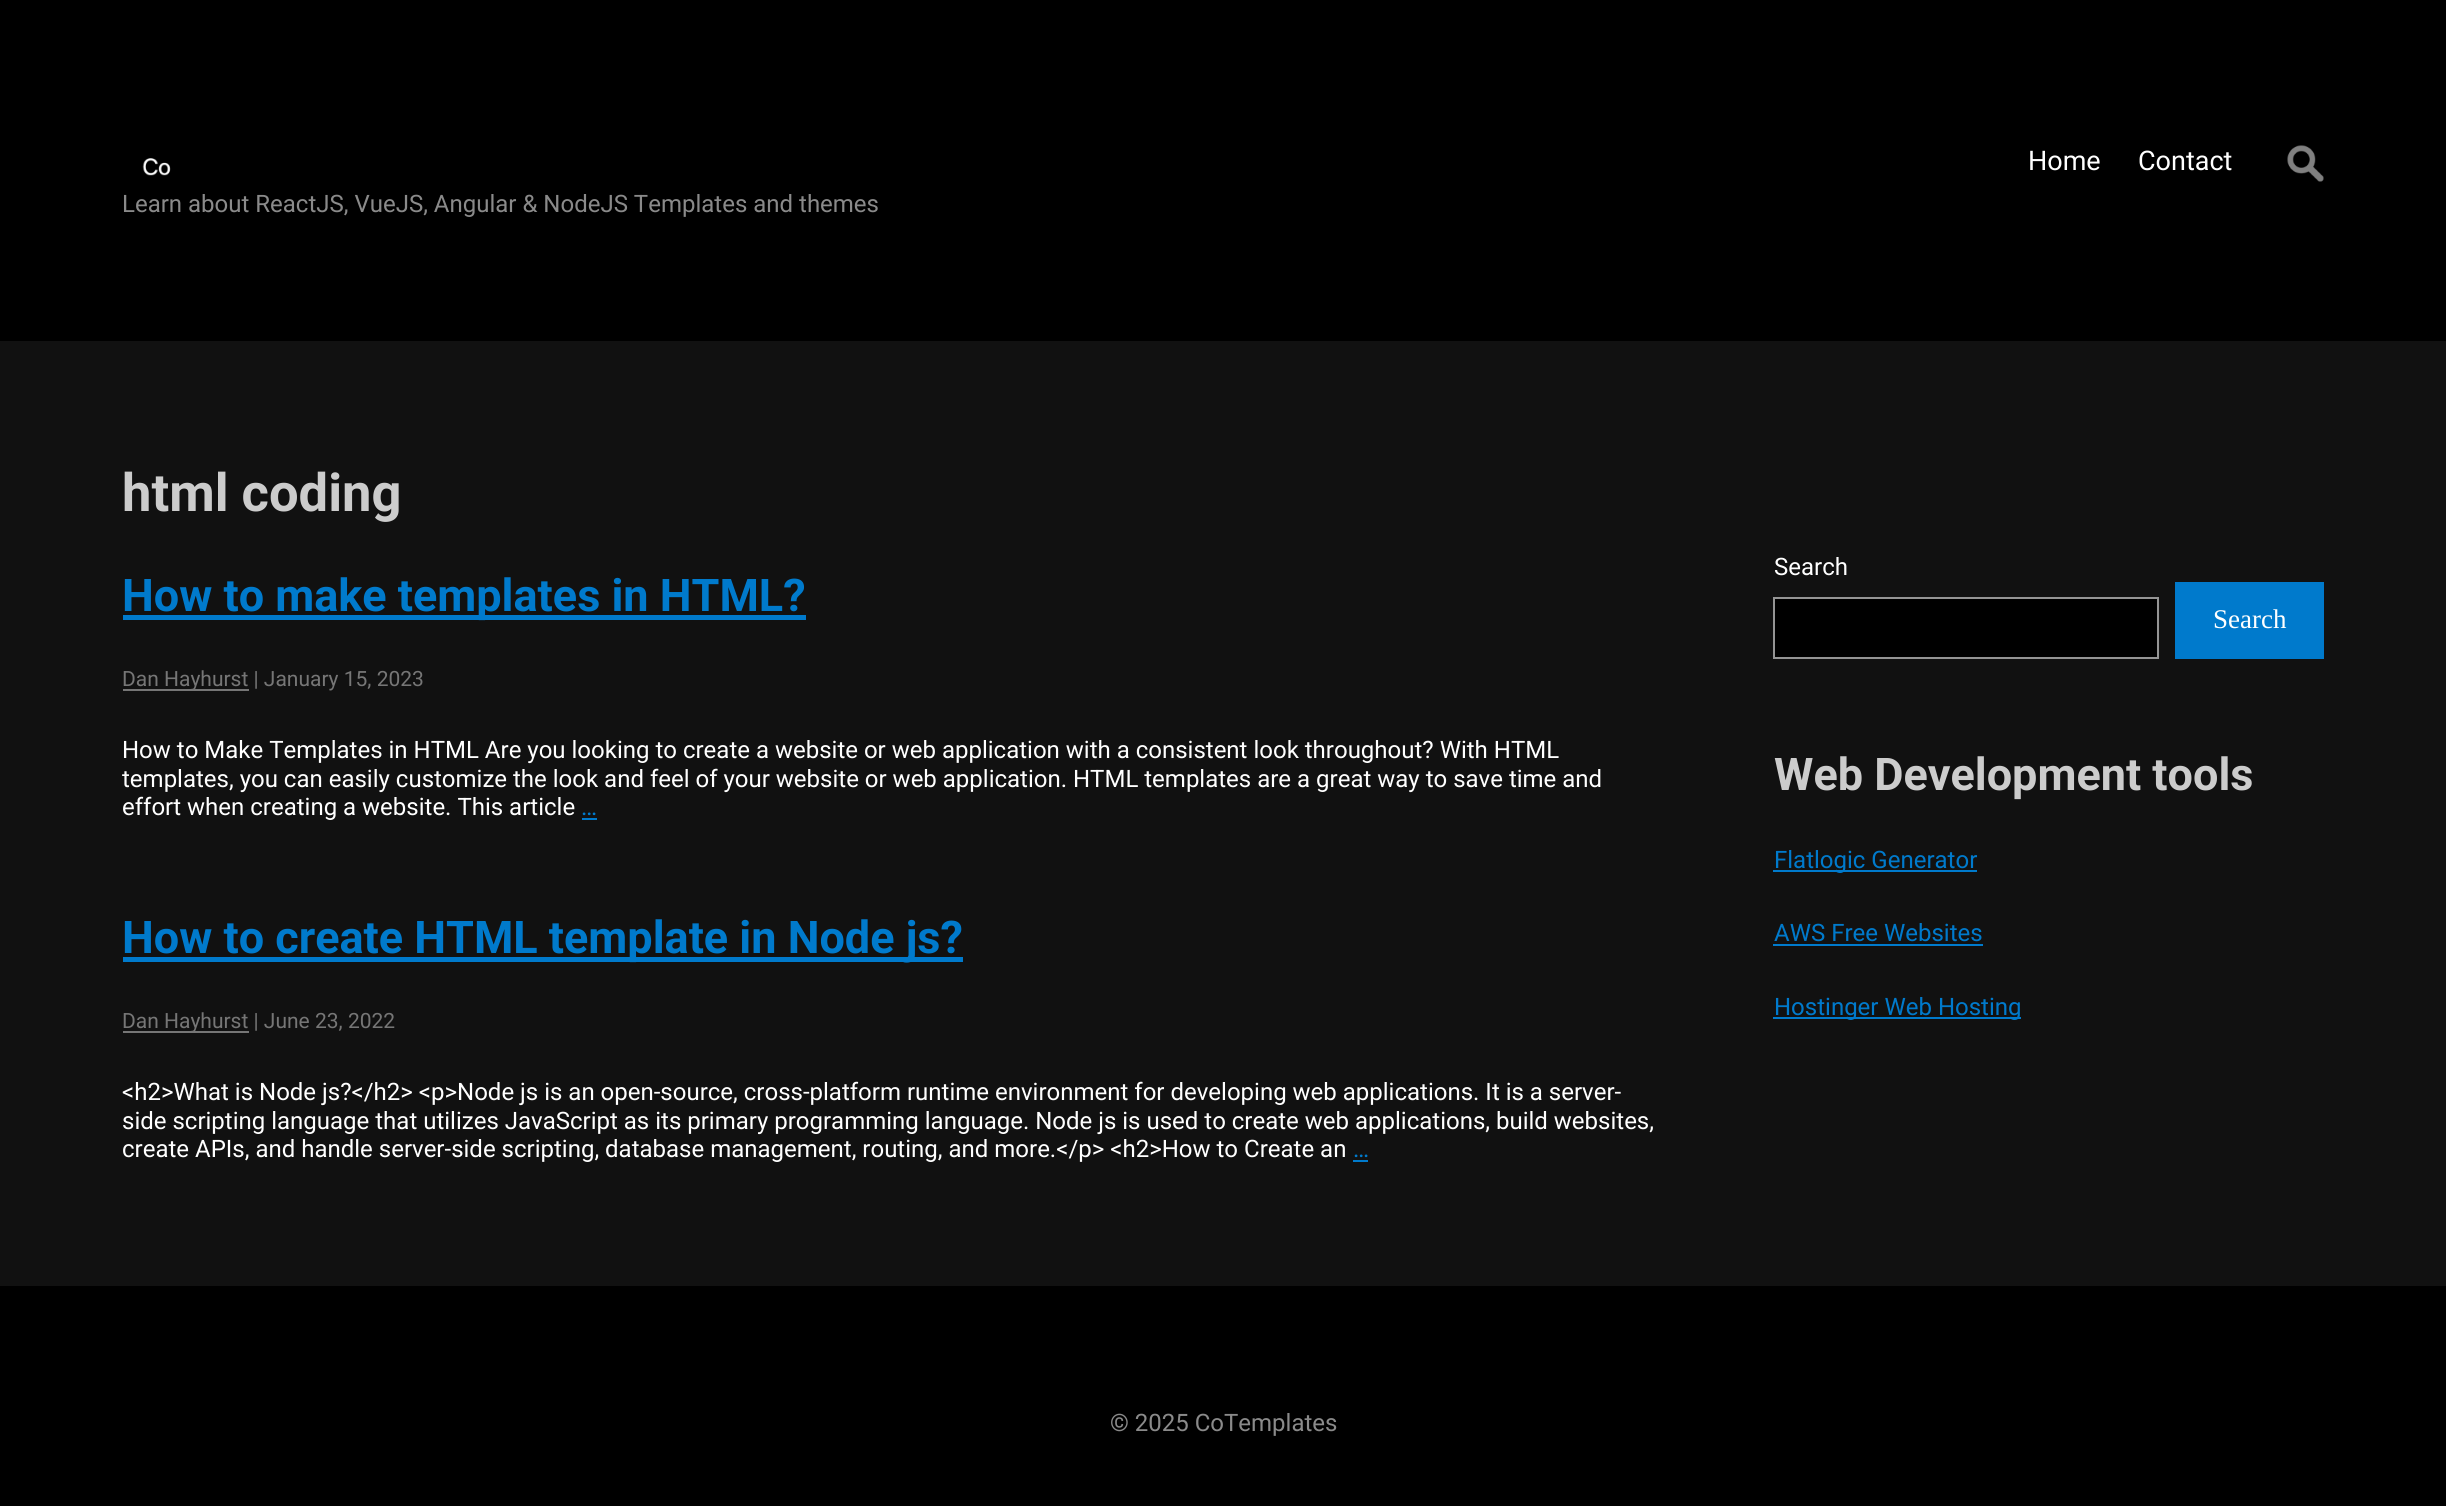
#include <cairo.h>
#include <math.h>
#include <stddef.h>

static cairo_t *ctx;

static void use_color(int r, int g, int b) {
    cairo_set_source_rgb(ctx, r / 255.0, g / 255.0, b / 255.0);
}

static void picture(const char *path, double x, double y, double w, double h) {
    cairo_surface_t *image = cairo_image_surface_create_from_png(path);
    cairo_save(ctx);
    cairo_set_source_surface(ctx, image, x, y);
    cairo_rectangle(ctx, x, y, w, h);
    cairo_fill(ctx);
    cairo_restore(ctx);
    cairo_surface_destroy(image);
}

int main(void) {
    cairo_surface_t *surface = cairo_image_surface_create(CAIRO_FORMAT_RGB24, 2446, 1506);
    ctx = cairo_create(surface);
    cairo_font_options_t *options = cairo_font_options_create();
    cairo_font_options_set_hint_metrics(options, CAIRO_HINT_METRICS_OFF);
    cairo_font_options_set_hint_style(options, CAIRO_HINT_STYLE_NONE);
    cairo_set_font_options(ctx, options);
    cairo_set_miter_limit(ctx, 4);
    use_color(0, 0, 0);
    cairo_paint(ctx);
    cairo_select_font_face(ctx, "Roboto", CAIRO_FONT_SLANT_NORMAL, CAIRO_FONT_WEIGHT_NORMAL);
    cairo_set_font_size(ctx, 27);
    use_color(255, 255, 255);
    cairo_move_to(ctx, 2028, 170);
    cairo_show_text(ctx, "Home");
    cairo_move_to(ctx, 2138, 170);
    cairo_show_text(ctx, "Contact");
    picture("img1.png", 2287, 145, 37, 37);
    picture("img2.png", 142, 158, 29, 18);
    cairo_set_font_size(ctx, 24);
    use_color(138, 138, 138);
    cairo_move_to(ctx, 122, 212);
    cairo_show_text(ctx, "Learn about ReactJS, VueJS, Angular & NodeJS Templates and themes");
    use_color(17, 17, 17);
    cairo_rectangle(ctx, 0, 341, 2446, 945);
    cairo_fill(ctx);
    cairo_select_font_face(ctx, "Roboto", CAIRO_FONT_SLANT_NORMAL, CAIRO_FONT_WEIGHT_BOLD);
    cairo_set_font_size(ctx, 52.5);
    use_color(204, 204, 204);
    cairo_move_to(ctx, 122, 511);
    cairo_show_text(ctx, "html coding");
    use_color(0, 122, 204);
    cairo_rectangle(ctx, 123, 615, 683, 5);
    cairo_fill(ctx);
    cairo_set_font_size(ctx, 45);
    cairo_move_to(ctx, 122, 611);
    cairo_show_text(ctx, "How to make templates in HTML?");
    use_color(118, 118, 118);
    cairo_rectangle(ctx, 123, 689, 126, 2);
    cairo_fill(ctx);
    cairo_select_font_face(ctx, "Roboto", CAIRO_FONT_SLANT_NORMAL, CAIRO_FONT_WEIGHT_NORMAL);
    cairo_set_font_size(ctx, 21);
    cairo_move_to(ctx, 122, 686);
    cairo_show_text(ctx, "Dan Hayhurst | January 15, 2023");
    cairo_set_font_size(ctx, 24);
    use_color(255, 255, 255);
    cairo_move_to(ctx, 122, 758);
    cairo_show_text(ctx, "How to Make Templates in HTML Are you looking to create a website or web application with a consistent look throughout? With HTML");
    cairo_move_to(ctx, 122, 787);
    cairo_show_text(ctx, "templates, you can easily customize the look and feel of your website or web application. HTML templates are a great way to save time and");
    cairo_move_to(ctx, 122, 815);
    cairo_show_text(ctx, "effort when creating a website. This article");
    use_color(0, 122, 204);
    cairo_move_to(ctx, 581, 815);
    cairo_show_text(ctx, "…");
    cairo_rectangle(ctx, 582, 818, 15, 2);
    cairo_fill(ctx);
    cairo_rectangle(ctx, 123, 957, 840, 5);
    cairo_fill(ctx);
    cairo_select_font_face(ctx, "Roboto", CAIRO_FONT_SLANT_NORMAL, CAIRO_FONT_WEIGHT_BOLD);
    cairo_set_font_size(ctx, 45);
    cairo_move_to(ctx, 122, 953);
    cairo_show_text(ctx, "How to create HTML template in Node js?");
    use_color(118, 118, 118);
    cairo_rectangle(ctx, 123, 1031, 126, 2);
    cairo_fill(ctx);
    cairo_select_font_face(ctx, "Roboto", CAIRO_FONT_SLANT_NORMAL, CAIRO_FONT_WEIGHT_NORMAL);
    cairo_set_font_size(ctx, 21);
    cairo_move_to(ctx, 122, 1028);
    cairo_show_text(ctx, "Dan Hayhurst | June 23, 2022");
    cairo_set_font_size(ctx, 24);
    use_color(255, 255, 255);
    cairo_move_to(ctx, 122, 1100);
    cairo_show_text(ctx, "<h2>What is Node js?</h2> <p>Node js is an open-source, cross-platform runtime environment for developing web applications. It is a server-");
    cairo_move_to(ctx, 122, 1129);
    cairo_show_text(ctx, "side scripting language that utilizes JavaScript as its primary programming language. Node js is used to create web applications, build websites,");
    cairo_move_to(ctx, 122, 1157);
    cairo_show_text(ctx, "create APIs, and handle server-side scripting, database management, routing, and more.</p> <h2>How to Create an");
    use_color(0, 122, 204);
    cairo_move_to(ctx, 1353, 1157);
    cairo_show_text(ctx, "…");
    cairo_rectangle(ctx, 1353, 1160, 15, 2);
    cairo_fill(ctx);
    use_color(255, 255, 255);
    cairo_move_to(ctx, 1774, 575);
    cairo_show_text(ctx, "Search");
    use_color(0, 0, 0);
    cairo_rectangle(ctx, 1774, 598, 384, 60);
    cairo_fill_preserve(ctx);
    use_color(148, 148, 148);
    cairo_stroke(ctx);
    use_color(0, 122, 204);
    cairo_rectangle(ctx, 2175, 582, 149, 77);
    cairo_fill(ctx);
    cairo_select_font_face(ctx, "Liberation Serif", CAIRO_FONT_SLANT_NORMAL, CAIRO_FONT_WEIGHT_NORMAL);
    cairo_set_font_size(ctx, 27);
    use_color(255, 255, 255);
    cairo_move_to(ctx, 2213, 628);
    cairo_show_text(ctx, "Search");
    cairo_select_font_face(ctx, "Roboto", CAIRO_FONT_SLANT_NORMAL, CAIRO_FONT_WEIGHT_BOLD);
    cairo_set_font_size(ctx, 45);
    use_color(204, 204, 204);
    cairo_move_to(ctx, 1774, 790);
    cairo_show_text(ctx, "Web Development tools");
    use_color(0, 122, 204);
    cairo_rectangle(ctx, 1773, 870, 204, 2);
    cairo_fill(ctx);
    cairo_select_font_face(ctx, "Roboto", CAIRO_FONT_SLANT_NORMAL, CAIRO_FONT_WEIGHT_NORMAL);
    cairo_set_font_size(ctx, 24);
    cairo_move_to(ctx, 1774, 868);
    cairo_show_text(ctx, "Flatlogic Generator");
    cairo_move_to(ctx, 1774, 941);
    cairo_show_text(ctx, "AWS Free Websites");
    cairo_rectangle(ctx, 1773, 944, 210, 2);
    cairo_fill(ctx);
    cairo_rectangle(ctx, 1773, 1017, 248, 2);
    cairo_fill(ctx);
    cairo_move_to(ctx, 1774, 1015);
    cairo_show_text(ctx, "Hostinger Web Hosting");
    use_color(138, 138, 138);
    cairo_move_to(ctx, 1110, 1431);
    cairo_show_text(ctx, "© 2025 CoTemplates");
    cairo_surface_write_to_png(surface, "result.png");
    cairo_font_options_destroy(options);
    cairo_destroy(ctx);
    cairo_surface_destroy(surface);
    return 0;
}
